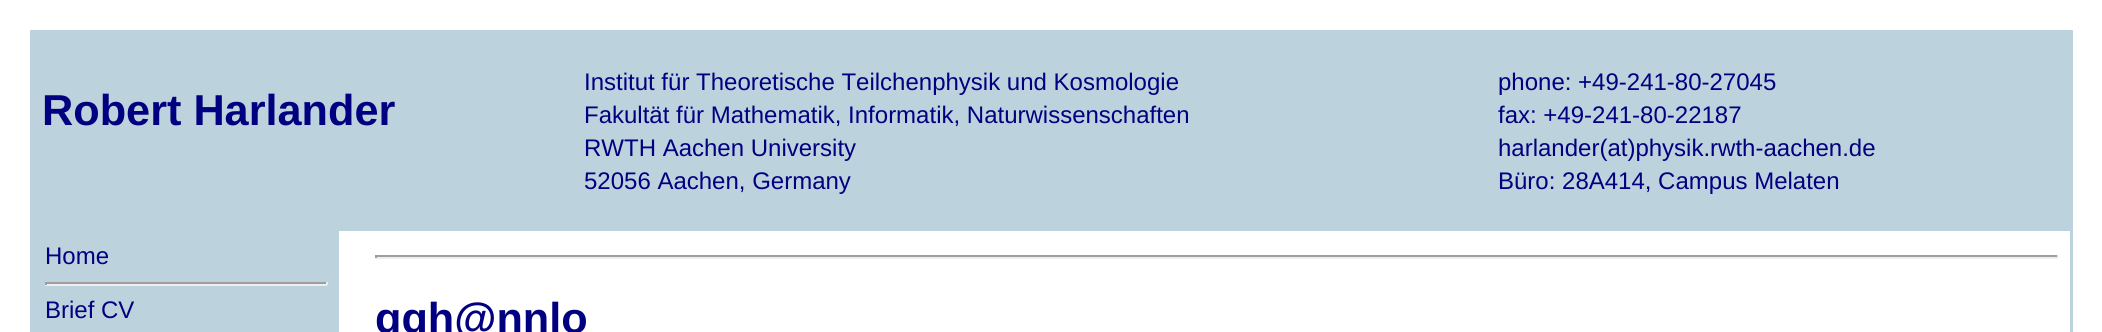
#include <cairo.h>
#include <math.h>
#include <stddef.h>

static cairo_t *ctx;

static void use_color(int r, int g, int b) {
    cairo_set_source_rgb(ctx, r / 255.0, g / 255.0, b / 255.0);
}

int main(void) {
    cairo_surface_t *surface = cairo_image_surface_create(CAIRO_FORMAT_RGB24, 2102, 332);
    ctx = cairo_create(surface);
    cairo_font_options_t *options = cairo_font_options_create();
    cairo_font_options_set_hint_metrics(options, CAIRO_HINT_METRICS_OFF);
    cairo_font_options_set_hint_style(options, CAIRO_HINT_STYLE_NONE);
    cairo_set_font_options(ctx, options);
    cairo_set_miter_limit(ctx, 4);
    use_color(255, 255, 255);
    cairo_paint(ctx);
    use_color(188, 210, 221);
    cairo_rectangle(ctx, 30, 30, 2043, 302);
    cairo_fill(ctx);
    cairo_select_font_face(ctx, "Liberation Sans", CAIRO_FONT_SLANT_NORMAL, CAIRO_FONT_WEIGHT_BOLD);
    cairo_set_font_size(ctx, 43.25);
    use_color(0, 0, 128);
    cairo_move_to(ctx, 42, 125);
    cairo_show_text(ctx, "Robert Harlander");
    cairo_select_font_face(ctx, "Liberation Sans", CAIRO_FONT_SLANT_NORMAL, CAIRO_FONT_WEIGHT_NORMAL);
    cairo_set_font_size(ctx, 24);
    cairo_move_to(ctx, 584, 90);
    cairo_show_text(ctx, "Institut für Theoretische Teilchenphysik und Kosmologie");
    cairo_move_to(ctx, 584, 123);
    cairo_show_text(ctx, "Fakultät für Mathematik, Informatik, Naturwissenschaften");
    cairo_move_to(ctx, 584, 156);
    cairo_show_text(ctx, "RWTH Aachen University");
    cairo_move_to(ctx, 584, 189);
    cairo_show_text(ctx, "52056 Aachen, Germany");
    cairo_move_to(ctx, 1498, 90);
    cairo_show_text(ctx, "phone: +49-241-80-27045");
    cairo_move_to(ctx, 1498, 123);
    cairo_show_text(ctx, "fax: +49-241-80-22187");
    cairo_move_to(ctx, 1498, 156);
    cairo_show_text(ctx, "harlander(at)physik.rwth-aachen.de");
    cairo_move_to(ctx, 1498, 189);
    cairo_show_text(ctx, "Büro: 28A414, Campus Melaten");
    cairo_move_to(ctx, 45, 264);
    cairo_show_text(ctx, "Home");
    use_color(159, 159, 159);
    cairo_rectangle(ctx, 45, 282, 282, 2);
    cairo_fill(ctx);
    use_color(238, 238, 238);
    cairo_rectangle(ctx, 326, 282, 2, 3);
    cairo_fill(ctx);
    cairo_rectangle(ctx, 45, 284, 282, 2);
    cairo_fill(ctx);
    use_color(159, 159, 159);
    cairo_rectangle(ctx, 45, 282, 2, 3);
    cairo_fill(ctx);
    use_color(0, 0, 128);
    cairo_move_to(ctx, 45, 318);
    cairo_show_text(ctx, "Brief CV");
    use_color(255, 255, 255);
    cairo_rectangle(ctx, 339, 231, 1731, 101);
    cairo_fill(ctx);
    use_color(159, 159, 159);
    cairo_rectangle(ctx, 375, 255, 1683, 2);
    cairo_fill(ctx);
    use_color(238, 238, 238);
    cairo_rectangle(ctx, 2057, 255, 2, 3);
    cairo_fill(ctx);
    cairo_rectangle(ctx, 375, 257, 1683, 2);
    cairo_fill(ctx);
    use_color(159, 159, 159);
    cairo_rectangle(ctx, 375, 255, 2, 3);
    cairo_fill(ctx);
    cairo_select_font_face(ctx, "Liberation Sans", CAIRO_FONT_SLANT_NORMAL, CAIRO_FONT_WEIGHT_BOLD);
    cairo_set_font_size(ctx, 43.25);
    use_color(0, 0, 128);
    cairo_move_to(ctx, 375, 333);
    cairo_show_text(ctx, "ggh@nnlo");
    cairo_surface_write_to_png(surface, "result.png");
    cairo_font_options_destroy(options);
    cairo_destroy(ctx);
    cairo_surface_destroy(surface);
    return 0;
}
